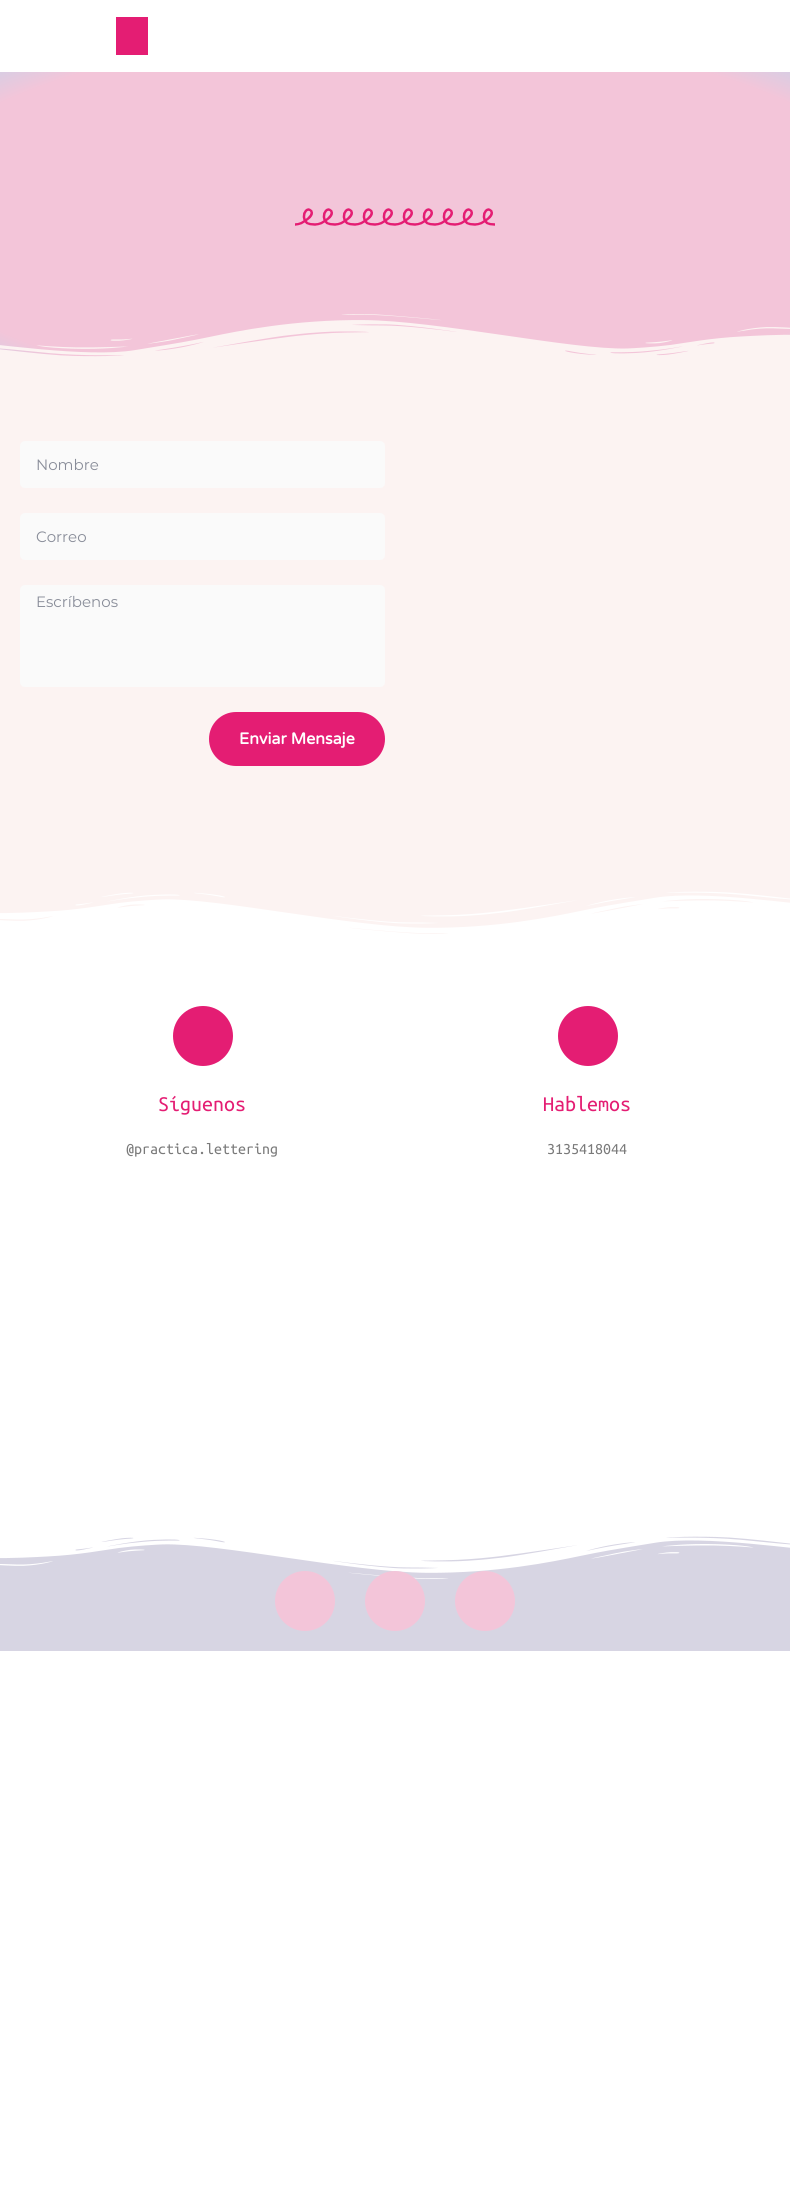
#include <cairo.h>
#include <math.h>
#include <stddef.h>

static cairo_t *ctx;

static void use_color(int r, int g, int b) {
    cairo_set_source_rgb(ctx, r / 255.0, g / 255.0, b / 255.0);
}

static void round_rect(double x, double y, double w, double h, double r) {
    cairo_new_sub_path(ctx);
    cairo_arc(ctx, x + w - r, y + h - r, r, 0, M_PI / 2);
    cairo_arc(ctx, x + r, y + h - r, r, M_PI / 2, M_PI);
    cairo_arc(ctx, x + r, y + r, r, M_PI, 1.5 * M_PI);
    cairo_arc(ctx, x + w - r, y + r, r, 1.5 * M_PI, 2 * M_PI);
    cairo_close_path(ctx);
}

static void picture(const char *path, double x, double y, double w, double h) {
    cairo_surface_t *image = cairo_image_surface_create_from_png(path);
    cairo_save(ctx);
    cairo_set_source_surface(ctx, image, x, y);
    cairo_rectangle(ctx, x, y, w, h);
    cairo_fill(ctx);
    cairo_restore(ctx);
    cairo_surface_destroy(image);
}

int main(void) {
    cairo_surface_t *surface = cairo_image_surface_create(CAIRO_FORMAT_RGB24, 790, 2190);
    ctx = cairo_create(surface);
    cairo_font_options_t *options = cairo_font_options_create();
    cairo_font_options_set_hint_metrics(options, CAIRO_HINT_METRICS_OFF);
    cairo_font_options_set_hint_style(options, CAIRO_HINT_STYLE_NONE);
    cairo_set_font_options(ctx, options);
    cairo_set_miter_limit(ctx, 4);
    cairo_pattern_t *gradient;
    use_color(255, 255, 255);
    cairo_paint(ctx);
    use_color(228, 29, 115);
    cairo_rectangle(ctx, 116, 17, 32, 38);
    cairo_fill(ctx);
    gradient = cairo_pattern_create_radial(0, 0, 0, 0, 0, 1);
    cairo_pattern_set_matrix(gradient, &(cairo_matrix_t){1.0 / 670, 0, 0, 1.0 / 245, -1.0 * 395 / 670, -1.0 * 217 / 245});
    cairo_pattern_add_color_stop_rgba(gradient, 0.75, 0.953, 0.773, 0.851, 1);
    cairo_pattern_add_color_stop_rgba(gradient, 1, 0.659, 0.863, 0.961, 1);
    cairo_set_source(ctx, gradient);
    cairo_pattern_destroy(gradient);
    cairo_rectangle(ctx, 0, 72, 790, 285);
    cairo_fill(ctx);
    picture("img1.png", 295, 208, 200, 18);
    picture("img2.png", 0, 314, 790, 47);
    use_color(252, 243, 242);
    cairo_rectangle(ctx, 0, 361, 790, 525);
    cairo_fill(ctx);
    use_color(250, 250, 250);
    round_rect(20, 441, 365, 47, 5);
    cairo_fill(ctx);
    cairo_select_font_face(ctx, "Montserrat", CAIRO_FONT_SLANT_NORMAL, CAIRO_FONT_WEIGHT_NORMAL);
    cairo_set_font_size(ctx, 15);
    use_color(137, 141, 153);
    cairo_move_to(ctx, 36, 470);
    cairo_show_text(ctx, "Nombre");
    use_color(250, 250, 250);
    round_rect(20, 513, 365, 47, 5);
    cairo_fill(ctx);
    use_color(137, 141, 153);
    cairo_move_to(ctx, 36, 542);
    cairo_show_text(ctx, "Correo");
    use_color(250, 250, 250);
    round_rect(20, 585, 365, 102, 5);
    cairo_fill(ctx);
    use_color(137, 141, 153);
    cairo_move_to(ctx, 36, 607);
    cairo_show_text(ctx, "Escríbenos");
    use_color(228, 29, 115);
    round_rect(209, 712, 176, 54, 27);
    cairo_fill(ctx);
    cairo_select_font_face(ctx, "Varela Round", CAIRO_FONT_SLANT_NORMAL, CAIRO_FONT_WEIGHT_BOLD);
    cairo_set_font_size(ctx, 16);
    use_color(255, 255, 255);
    cairo_move_to(ctx, 239, 744);
    cairo_show_text(ctx, "Enviar Mensaje");
    picture("img3.png", 0, 886, 790, 48);
    use_color(228, 29, 115);
    cairo_arc(ctx, 203, 1036, 30, 0, 2 * M_PI);
    cairo_fill(ctx);
    cairo_select_font_face(ctx, "Ubuntu Mono", CAIRO_FONT_SLANT_NORMAL, CAIRO_FONT_WEIGHT_NORMAL);
    cairo_set_font_size(ctx, 22);
    cairo_move_to(ctx, 158, 1111);
    cairo_show_text(ctx, "Síguenos");
    cairo_set_font_size(ctx, 16);
    use_color(122, 122, 122);
    cairo_move_to(ctx, 126, 1154);
    cairo_show_text(ctx, "@practica.lettering");
    use_color(228, 29, 115);
    cairo_new_path(ctx);
    cairo_arc(ctx, 588, 1036, 30, 0, 2 * M_PI);
    cairo_fill(ctx);
    cairo_set_font_size(ctx, 22);
    cairo_move_to(ctx, 543, 1111);
    cairo_show_text(ctx, "Hablemos");
    cairo_set_font_size(ctx, 16);
    use_color(122, 122, 122);
    cairo_move_to(ctx, 547, 1154);
    cairo_show_text(ctx, "3135418044");
    use_color(215, 213, 227);
    cairo_rectangle(ctx, 0, 1536, 790, 115);
    cairo_fill(ctx);
    picture("img4.png", 0, 1531, 790, 48);
    use_color(243, 197, 217);
    cairo_arc(ctx, 305, 1601, 30, 0, 2 * M_PI);
    cairo_fill(ctx);
    cairo_arc(ctx, 395, 1601, 30, 0, 2 * M_PI);
    cairo_fill(ctx);
    cairo_arc(ctx, 485, 1601, 30, 0, 2 * M_PI);
    cairo_fill(ctx);
    cairo_surface_write_to_png(surface, "result.png");
    cairo_font_options_destroy(options);
    cairo_destroy(ctx);
    cairo_surface_destroy(surface);
    return 0;
}
